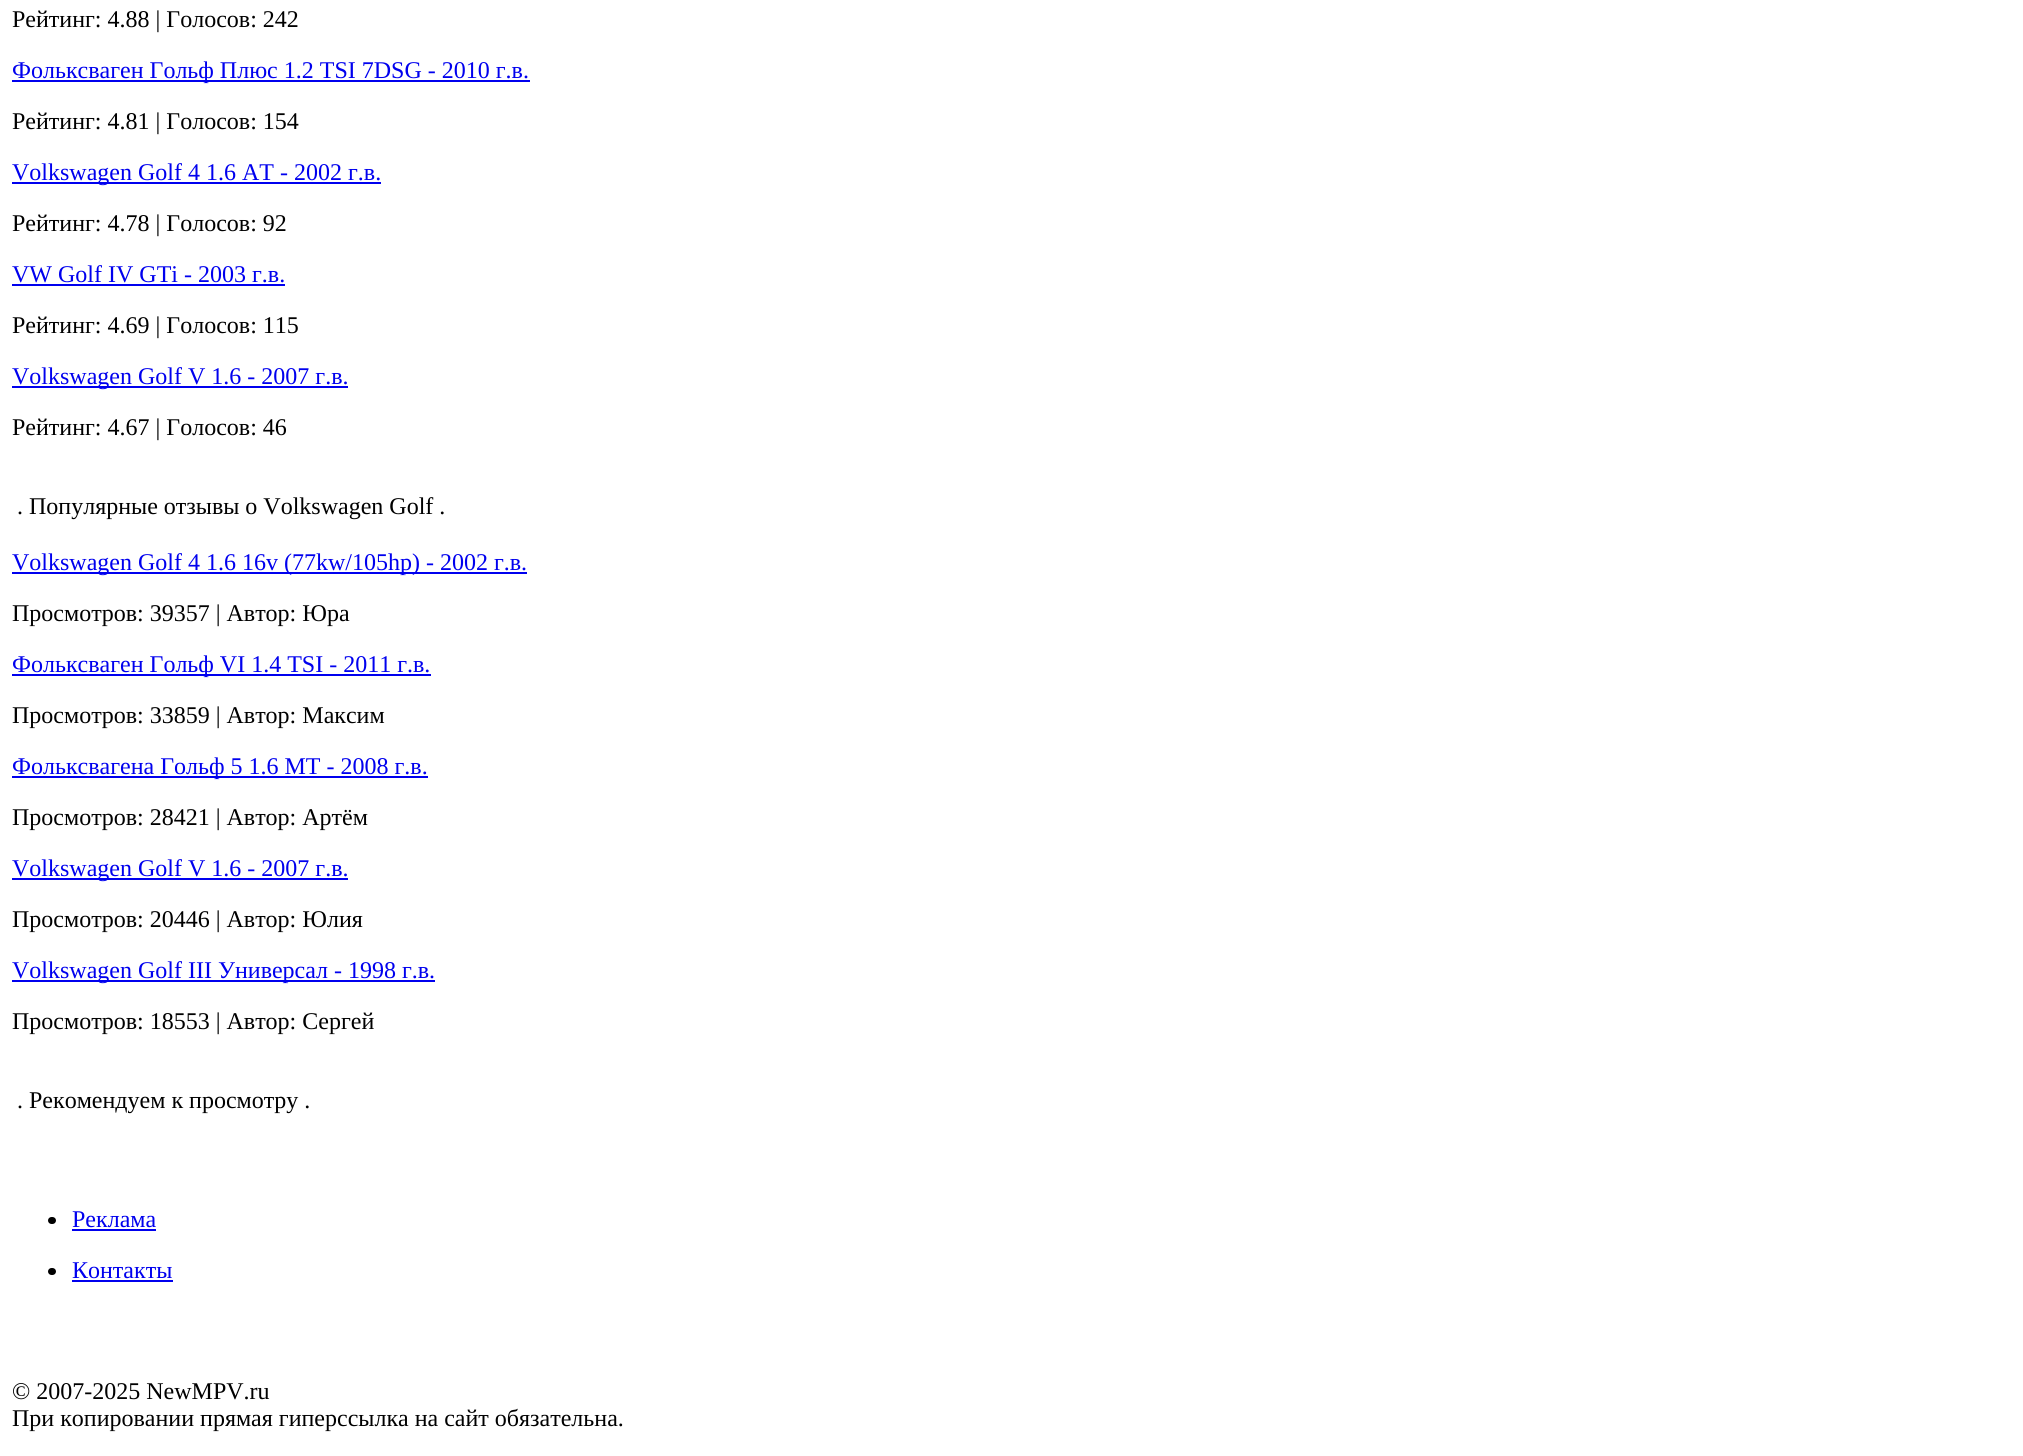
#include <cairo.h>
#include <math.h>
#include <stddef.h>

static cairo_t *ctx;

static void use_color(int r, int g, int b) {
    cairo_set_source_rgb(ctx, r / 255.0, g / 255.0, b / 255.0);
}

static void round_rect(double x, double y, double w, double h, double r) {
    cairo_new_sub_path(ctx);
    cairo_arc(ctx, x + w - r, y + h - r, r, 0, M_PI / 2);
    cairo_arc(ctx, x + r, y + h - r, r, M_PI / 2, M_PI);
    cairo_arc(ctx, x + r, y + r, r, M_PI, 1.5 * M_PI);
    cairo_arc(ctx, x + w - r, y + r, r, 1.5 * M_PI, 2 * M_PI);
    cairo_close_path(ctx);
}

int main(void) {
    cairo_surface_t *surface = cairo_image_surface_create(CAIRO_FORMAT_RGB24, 2023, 1456);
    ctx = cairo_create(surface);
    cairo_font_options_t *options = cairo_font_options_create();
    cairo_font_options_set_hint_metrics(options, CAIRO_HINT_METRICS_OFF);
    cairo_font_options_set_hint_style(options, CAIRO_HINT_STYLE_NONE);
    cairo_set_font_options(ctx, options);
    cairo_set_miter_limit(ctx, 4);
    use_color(255, 255, 255);
    cairo_paint(ctx);
    cairo_select_font_face(ctx, "Liberation Serif", CAIRO_FONT_SLANT_NORMAL, CAIRO_FONT_WEIGHT_NORMAL);
    cairo_set_font_size(ctx, 24);
    use_color(0, 0, 0);
    cairo_move_to(ctx, 12, 27);
    cairo_show_text(ctx, "Рейтинг: 4.88 | Голосов: 242");
    use_color(0, 0, 238);
    cairo_rectangle(ctx, 12, 80, 518, 2);
    cairo_fill(ctx);
    cairo_move_to(ctx, 12, 78);
    cairo_show_text(ctx, "Фольксваген Гольф Плюс 1.2 TSI 7DSG - 2010 г.в.");
    use_color(0, 0, 0);
    cairo_move_to(ctx, 12, 129);
    cairo_show_text(ctx, "Рейтинг: 4.81 | Голосов: 154");
    use_color(0, 0, 238);
    cairo_rectangle(ctx, 12, 182, 369, 2);
    cairo_fill(ctx);
    cairo_move_to(ctx, 12, 180);
    cairo_show_text(ctx, "Volkswagen Golf 4 1.6 AT - 2002 г.в.");
    use_color(0, 0, 0);
    cairo_move_to(ctx, 12, 231);
    cairo_show_text(ctx, "Рейтинг: 4.78 | Голосов: 92");
    use_color(0, 0, 238);
    cairo_move_to(ctx, 12, 282);
    cairo_show_text(ctx, "VW Golf IV GTi - 2003 г.в.");
    cairo_rectangle(ctx, 12, 284, 273, 2);
    cairo_fill(ctx);
    use_color(0, 0, 0);
    cairo_move_to(ctx, 12, 333);
    cairo_show_text(ctx, "Рейтинг: 4.69 | Голосов: 115");
    use_color(0, 0, 238);
    cairo_rectangle(ctx, 12, 386, 336, 2);
    cairo_fill(ctx);
    cairo_move_to(ctx, 12, 384);
    cairo_show_text(ctx, "Volkswagen Golf V 1.6 - 2007 г.в.");
    use_color(0, 0, 0);
    cairo_move_to(ctx, 12, 435);
    cairo_show_text(ctx, "Рейтинг: 4.67 | Голосов: 46");
    cairo_move_to(ctx, 17, 514);
    cairo_show_text(ctx, ". Популярные отзывы о Volkswagen Golf .");
    use_color(0, 0, 238);
    cairo_rectangle(ctx, 12, 572, 515, 2);
    cairo_fill(ctx);
    cairo_move_to(ctx, 12, 570);
    cairo_show_text(ctx, "Volkswagen Golf 4 1.6 16v (77kw/105hp) - 2002 г.в.");
    use_color(0, 0, 0);
    cairo_move_to(ctx, 12, 621);
    cairo_show_text(ctx, "Просмотров: 39357 | Автор: Юра");
    use_color(0, 0, 238);
    cairo_rectangle(ctx, 12, 674, 419, 2);
    cairo_fill(ctx);
    cairo_move_to(ctx, 12, 672);
    cairo_show_text(ctx, "Фольксваген Гольф VI 1.4 TSI - 2011 г.в.");
    use_color(0, 0, 0);
    cairo_move_to(ctx, 12, 723);
    cairo_show_text(ctx, "Просмотров: 33859 | Автор: Максим");
    use_color(0, 0, 238);
    cairo_rectangle(ctx, 12, 776, 416, 2);
    cairo_fill(ctx);
    cairo_move_to(ctx, 12, 774);
    cairo_show_text(ctx, "Фольксвагена Гольф 5 1.6 МТ - 2008 г.в.");
    use_color(0, 0, 0);
    cairo_move_to(ctx, 12, 825);
    cairo_show_text(ctx, "Просмотров: 28421 | Автор: Артём");
    use_color(0, 0, 238);
    cairo_rectangle(ctx, 12, 878, 336, 2);
    cairo_fill(ctx);
    cairo_move_to(ctx, 12, 876);
    cairo_show_text(ctx, "Volkswagen Golf V 1.6 - 2007 г.в.");
    use_color(0, 0, 0);
    cairo_move_to(ctx, 12, 927);
    cairo_show_text(ctx, "Просмотров: 20446 | Автор: Юлия");
    use_color(0, 0, 238);
    cairo_rectangle(ctx, 12, 980, 423, 2);
    cairo_fill(ctx);
    cairo_move_to(ctx, 12, 978);
    cairo_show_text(ctx, "Volkswagen Golf III Универсал - 1998 г.в.");
    use_color(0, 0, 0);
    cairo_move_to(ctx, 12, 1029);
    cairo_show_text(ctx, "Просмотров: 18553 | Автор: Сергей");
    cairo_move_to(ctx, 17, 1108);
    cairo_show_text(ctx, ". Рекомендуем к просмотру .");
    round_rect(48, 1217, 8, 7, 3.5);
    cairo_fill(ctx);
    use_color(0, 0, 238);
    cairo_move_to(ctx, 72, 1227);
    cairo_show_text(ctx, "Реклама");
    cairo_rectangle(ctx, 72, 1229, 84, 2);
    cairo_fill(ctx);
    use_color(0, 0, 0);
    round_rect(48, 1268, 8, 7, 3.5);
    cairo_fill(ctx);
    use_color(0, 0, 238);
    cairo_move_to(ctx, 72, 1278);
    cairo_show_text(ctx, "Контакты");
    cairo_rectangle(ctx, 72, 1280, 101, 2);
    cairo_fill(ctx);
    use_color(0, 0, 0);
    cairo_move_to(ctx, 12, 1399);
    cairo_show_text(ctx, "© 2007-2025 NewMPV.ru");
    cairo_move_to(ctx, 12, 1426);
    cairo_show_text(ctx, "При копировании прямая гиперссылка на сайт обязательна.");
    cairo_surface_write_to_png(surface, "result.png");
    cairo_font_options_destroy(options);
    cairo_destroy(ctx);
    cairo_surface_destroy(surface);
    return 0;
}
